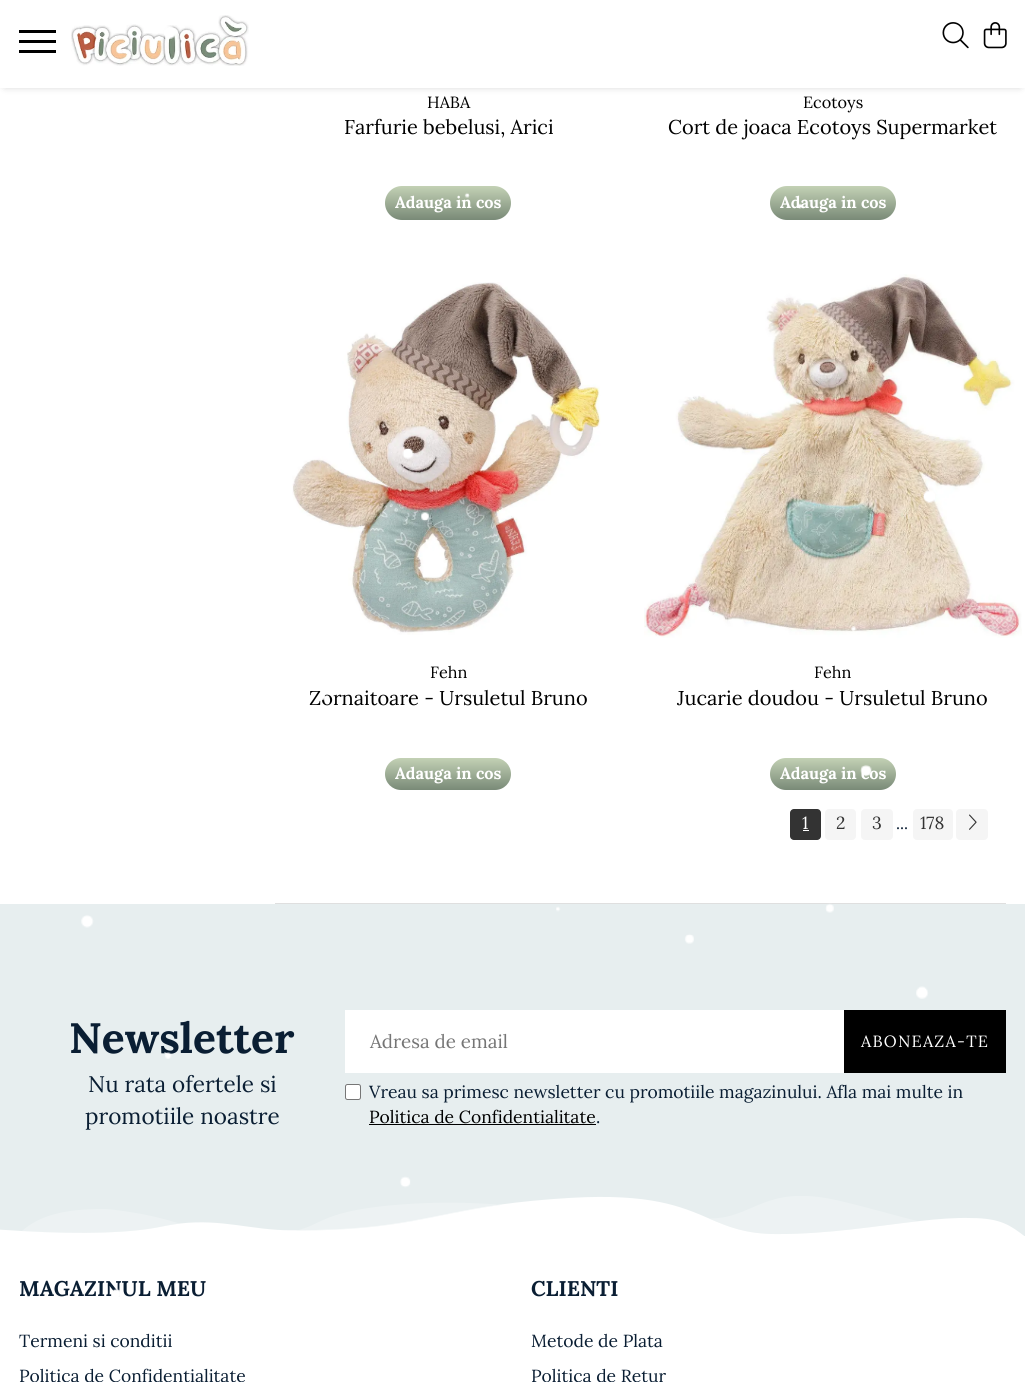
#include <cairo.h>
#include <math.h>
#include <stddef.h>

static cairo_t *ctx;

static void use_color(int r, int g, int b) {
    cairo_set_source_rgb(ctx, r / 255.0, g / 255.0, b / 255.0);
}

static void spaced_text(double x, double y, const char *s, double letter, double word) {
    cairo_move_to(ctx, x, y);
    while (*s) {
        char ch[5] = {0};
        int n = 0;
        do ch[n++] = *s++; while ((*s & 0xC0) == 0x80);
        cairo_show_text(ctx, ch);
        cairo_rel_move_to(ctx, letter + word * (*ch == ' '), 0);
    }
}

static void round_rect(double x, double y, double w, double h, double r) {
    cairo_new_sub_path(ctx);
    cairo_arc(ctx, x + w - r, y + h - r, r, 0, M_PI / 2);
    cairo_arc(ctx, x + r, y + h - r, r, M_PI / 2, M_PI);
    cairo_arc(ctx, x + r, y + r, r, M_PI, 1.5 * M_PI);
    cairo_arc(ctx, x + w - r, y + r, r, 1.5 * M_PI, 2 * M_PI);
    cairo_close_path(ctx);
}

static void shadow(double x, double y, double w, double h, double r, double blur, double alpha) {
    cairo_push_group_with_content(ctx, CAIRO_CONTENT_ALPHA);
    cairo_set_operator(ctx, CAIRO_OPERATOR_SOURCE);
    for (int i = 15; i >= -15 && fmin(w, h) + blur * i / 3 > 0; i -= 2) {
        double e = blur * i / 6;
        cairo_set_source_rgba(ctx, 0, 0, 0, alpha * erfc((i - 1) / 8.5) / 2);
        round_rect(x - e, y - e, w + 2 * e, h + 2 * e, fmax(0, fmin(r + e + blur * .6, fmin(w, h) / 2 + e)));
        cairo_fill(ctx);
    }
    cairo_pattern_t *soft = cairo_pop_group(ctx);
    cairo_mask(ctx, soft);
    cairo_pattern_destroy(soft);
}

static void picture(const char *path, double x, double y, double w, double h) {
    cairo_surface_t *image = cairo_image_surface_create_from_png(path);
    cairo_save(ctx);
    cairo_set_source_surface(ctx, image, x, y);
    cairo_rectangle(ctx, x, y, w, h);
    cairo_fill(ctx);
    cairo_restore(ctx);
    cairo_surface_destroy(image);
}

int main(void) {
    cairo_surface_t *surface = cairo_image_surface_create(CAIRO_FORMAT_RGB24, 1025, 1382);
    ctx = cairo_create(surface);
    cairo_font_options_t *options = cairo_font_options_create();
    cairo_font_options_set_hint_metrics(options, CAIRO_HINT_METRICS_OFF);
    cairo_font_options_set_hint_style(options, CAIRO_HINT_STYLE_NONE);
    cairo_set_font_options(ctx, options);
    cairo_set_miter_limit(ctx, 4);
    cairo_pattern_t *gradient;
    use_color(255, 255, 255);
    cairo_paint(ctx);
    use_color(0, 0, 0);
    shadow(5, 8, 1015, 77, 0, 4.5, 0.3);
    use_color(255, 255, 255);
    cairo_rectangle(ctx, 0, 0, 1025, 88);
    cairo_fill(ctx);
    picture("img2.png", 71, 15, 178, 51);
    use_color(223, 223, 223);
    cairo_rectangle(ctx, 275, 903, 731, 1);
    cairo_fill(ctx);
    cairo_select_font_face(ctx, "Lora", CAIRO_FONT_SLANT_NORMAL, CAIRO_FONT_WEIGHT_NORMAL);
    cairo_set_font_size(ctx, 16.25);
    use_color(0, 0, 0);
    cairo_move_to(ctx, 427, 108);
    cairo_show_text(ctx, "HABA");
    cairo_set_font_size(ctx, 20);
    cairo_move_to(ctx, 344, 134);
    cairo_show_text(ctx, "Farfurie bebelusi, Arici");
    gradient = cairo_pattern_create_linear(448, 186, 448, 220);
    cairo_pattern_add_color_stop_rgba(gradient, 0, 0.765, 0.82, 0.71, 1);
    cairo_pattern_add_color_stop_rgba(gradient, 1, 0.475, 0.541, 0.467, 1);
    cairo_set_source(ctx, gradient);
    cairo_pattern_destroy(gradient);
    round_rect(385, 186, 126, 34, 17);
    cairo_fill(ctx);
    cairo_select_font_face(ctx, "Lora", CAIRO_FONT_SLANT_NORMAL, CAIRO_FONT_WEIGHT_BOLD);
    cairo_set_font_size(ctx, 16.25);
    use_color(255, 255, 255);
    cairo_move_to(ctx, 395, 208);
    cairo_show_text(ctx, "Adauga in cos");
    cairo_select_font_face(ctx, "Lora", CAIRO_FONT_SLANT_NORMAL, CAIRO_FONT_WEIGHT_NORMAL);
    use_color(0, 0, 0);
    cairo_move_to(ctx, 803, 108);
    cairo_show_text(ctx, "Ecotoys");
    cairo_set_font_size(ctx, 20);
    cairo_move_to(ctx, 668, 134);
    cairo_show_text(ctx, "Cort de joaca Ecotoys Supermarket");
    gradient = cairo_pattern_create_linear(833, 186, 833, 220);
    cairo_pattern_add_color_stop_rgba(gradient, 0, 0.765, 0.82, 0.71, 1);
    cairo_pattern_add_color_stop_rgba(gradient, 1, 0.475, 0.541, 0.467, 1);
    cairo_set_source(ctx, gradient);
    cairo_pattern_destroy(gradient);
    round_rect(770, 186, 126, 34, 17);
    cairo_fill(ctx);
    cairo_select_font_face(ctx, "Lora", CAIRO_FONT_SLANT_NORMAL, CAIRO_FONT_WEIGHT_BOLD);
    cairo_set_font_size(ctx, 16.25);
    use_color(255, 255, 255);
    cairo_move_to(ctx, 780, 208);
    cairo_show_text(ctx, "Adauga in cos");
    picture("img5.png", 292, 282, 309, 353);
    cairo_select_font_face(ctx, "Lora", CAIRO_FONT_SLANT_NORMAL, CAIRO_FONT_WEIGHT_NORMAL);
    use_color(0, 0, 0);
    cairo_move_to(ctx, 430, 678);
    cairo_show_text(ctx, "Fehn");
    cairo_set_font_size(ctx, 20);
    cairo_move_to(ctx, 309, 705);
    cairo_show_text(ctx, "Zornaitoare - Ursuletul Bruno");
    gradient = cairo_pattern_create_linear(448, 758, 448, 790);
    cairo_pattern_add_color_stop_rgba(gradient, 0, 0.765, 0.82, 0.71, 1);
    cairo_pattern_add_color_stop_rgba(gradient, 1, 0.475, 0.541, 0.467, 1);
    cairo_set_source(ctx, gradient);
    cairo_pattern_destroy(gradient);
    round_rect(385, 758, 126, 32, 16);
    cairo_fill(ctx);
    cairo_select_font_face(ctx, "Lora", CAIRO_FONT_SLANT_NORMAL, CAIRO_FONT_WEIGHT_BOLD);
    cairo_set_font_size(ctx, 16.25);
    use_color(255, 255, 255);
    cairo_move_to(ctx, 395, 779);
    cairo_show_text(ctx, "Adauga in cos");
    picture("img6.png", 644, 274, 378, 364);
    cairo_select_font_face(ctx, "Lora", CAIRO_FONT_SLANT_NORMAL, CAIRO_FONT_WEIGHT_NORMAL);
    use_color(0, 0, 0);
    cairo_move_to(ctx, 814, 678);
    cairo_show_text(ctx, "Fehn");
    cairo_set_font_size(ctx, 20);
    cairo_move_to(ctx, 677, 705);
    cairo_show_text(ctx, "Jucarie doudou - Ursuletul Bruno");
    gradient = cairo_pattern_create_linear(833, 758, 833, 790);
    cairo_pattern_add_color_stop_rgba(gradient, 0, 0.765, 0.82, 0.71, 1);
    cairo_pattern_add_color_stop_rgba(gradient, 1, 0.475, 0.541, 0.467, 1);
    cairo_set_source(ctx, gradient);
    cairo_pattern_destroy(gradient);
    round_rect(770, 758, 126, 32, 16);
    cairo_fill(ctx);
    cairo_select_font_face(ctx, "Lora", CAIRO_FONT_SLANT_NORMAL, CAIRO_FONT_WEIGHT_BOLD);
    cairo_set_font_size(ctx, 16.25);
    use_color(255, 255, 255);
    cairo_move_to(ctx, 780, 779);
    cairo_show_text(ctx, "Adauga in cos");
    use_color(51, 51, 51);
    round_rect(790, 809, 31, 31, 4);
    cairo_fill(ctx);
    cairo_select_font_face(ctx, "Lora", CAIRO_FONT_SLANT_NORMAL, CAIRO_FONT_WEIGHT_NORMAL);
    cairo_set_font_size(ctx, 17.5);
    use_color(255, 255, 255);
    cairo_move_to(ctx, 802, 829);
    cairo_show_text(ctx, "1");
    cairo_rectangle(ctx, 803, 830, 6, 1);
    cairo_fill(ctx);
    use_color(245, 245, 245);
    round_rect(825, 809, 31, 31, 4);
    cairo_fill(ctx);
    use_color(51, 51, 51);
    cairo_move_to(ctx, 836, 829);
    cairo_show_text(ctx, "2");
    use_color(245, 245, 245);
    round_rect(861, 809, 32, 31, 4);
    cairo_fill(ctx);
    use_color(51, 51, 51);
    cairo_move_to(ctx, 872, 829);
    cairo_show_text(ctx, "3");
    cairo_set_font_size(ctx, 16.25);
    use_color(10, 30, 51);
    cairo_move_to(ctx, 896, 829);
    cairo_show_text(ctx, "...");
    use_color(245, 245, 245);
    round_rect(913, 809, 40, 31, 4);
    cairo_fill(ctx);
    cairo_set_font_size(ctx, 17.5);
    use_color(51, 51, 51);
    cairo_move_to(ctx, 920, 829);
    cairo_show_text(ctx, "178");
    use_color(231, 238, 239);
    cairo_rectangle(ctx, 0, 904, 1025, 332);
    cairo_fill(ctx);
    cairo_select_font_face(ctx, "Lora", CAIRO_FONT_SLANT_NORMAL, CAIRO_FONT_WEIGHT_BOLD);
    cairo_set_font_size(ctx, 42.5);
    use_color(10, 30, 51);
    cairo_move_to(ctx, 69, 1053);
    cairo_show_text(ctx, "Newsletter");
    cairo_select_font_face(ctx, "Lora", CAIRO_FONT_SLANT_NORMAL, CAIRO_FONT_WEIGHT_NORMAL);
    cairo_set_font_size(ctx, 22.5);
    cairo_move_to(ctx, 88, 1092);
    cairo_show_text(ctx, "Nu rata ofertele si");
    cairo_move_to(ctx, 85, 1124);
    cairo_show_text(ctx, "promotiile noastre");
    use_color(255, 255, 255);
    cairo_rectangle(ctx, 345, 1010, 499, 63);
    cairo_fill(ctx);
    cairo_set_font_size(ctx, 18.75);
    use_color(117, 117, 117);
    cairo_move_to(ctx, 370, 1048);
    cairo_show_text(ctx, "Adresa de email");
    use_color(0, 0, 0);
    cairo_rectangle(ctx, 844, 1010, 162, 63);
    cairo_fill(ctx);
    cairo_set_font_size(ctx, 16.25);
    use_color(255, 255, 255);
    spaced_text(861, 1047, "ABONEAZA-TE", 1.25, 0);
    round_rect(345.5, 1084.5, 15, 15, 2);
    cairo_fill_preserve(ctx);
    use_color(118, 118, 118);
    cairo_set_line_width(ctx, 1);
    cairo_stroke(ctx);
    cairo_set_font_size(ctx, 17.5);
    use_color(10, 30, 51);
    cairo_move_to(ctx, 369, 1098);
    cairo_show_text(ctx, "Vreau sa primesc newsletter cu promotiile magazinului. Afla mai multe in");
    use_color(0, 0, 0);
    cairo_move_to(ctx, 369, 1123);
    cairo_show_text(ctx, "Politica de Confidentialitate");
    cairo_rectangle(ctx, 369, 1124, 227, 1);
    cairo_fill(ctx);
    use_color(10, 30, 51);
    cairo_move_to(ctx, 596, 1123);
    cairo_show_text(ctx, ".");
    picture("img8.png", 0, 1196, 1024, 40);
    cairo_select_font_face(ctx, "Lora", CAIRO_FONT_SLANT_NORMAL, CAIRO_FONT_WEIGHT_BOLD);
    cairo_set_font_size(ctx, 21.25);
    cairo_move_to(ctx, 19, 1296);
    cairo_show_text(ctx, "MAGAZINUL MEU");
    cairo_move_to(ctx, 531, 1296);
    cairo_show_text(ctx, "CLIENTI");
    picture("img1.png", 81, 26, 854, 1271);
    use_color(0, 0, 0);
    cairo_rectangle(ctx, 19, 40, 37, 3);
    cairo_fill(ctx);
    cairo_rectangle(ctx, 19, 30, 37, 3);
    cairo_fill(ctx);
    cairo_rectangle(ctx, 19, 50, 37, 3);
    cairo_fill(ctx);
    picture("img3.png", 942, 22, 27, 27);
    picture("img4.png", 983, 22, 24, 27);
    use_color(245, 245, 245);
    round_rect(956, 809, 32, 31, 4);
    cairo_fill(ctx);
    picture("img7.png", 969, 814, 8, 16);
    cairo_select_font_face(ctx, "Lora", CAIRO_FONT_SLANT_NORMAL, CAIRO_FONT_WEIGHT_NORMAL);
    cairo_set_font_size(ctx, 17.5);
    use_color(10, 30, 51);
    cairo_move_to(ctx, 19, 1347);
    cairo_show_text(ctx, "Termeni si conditii");
    cairo_move_to(ctx, 19, 1382);
    cairo_show_text(ctx, "Politica de Confidentialitate");
    cairo_move_to(ctx, 531, 1347);
    cairo_show_text(ctx, "Metode de Plata");
    cairo_move_to(ctx, 531, 1382);
    cairo_show_text(ctx, "Politica de Retur");
    cairo_surface_write_to_png(surface, "result.png");
    cairo_font_options_destroy(options);
    cairo_destroy(ctx);
    cairo_surface_destroy(surface);
    return 0;
}
